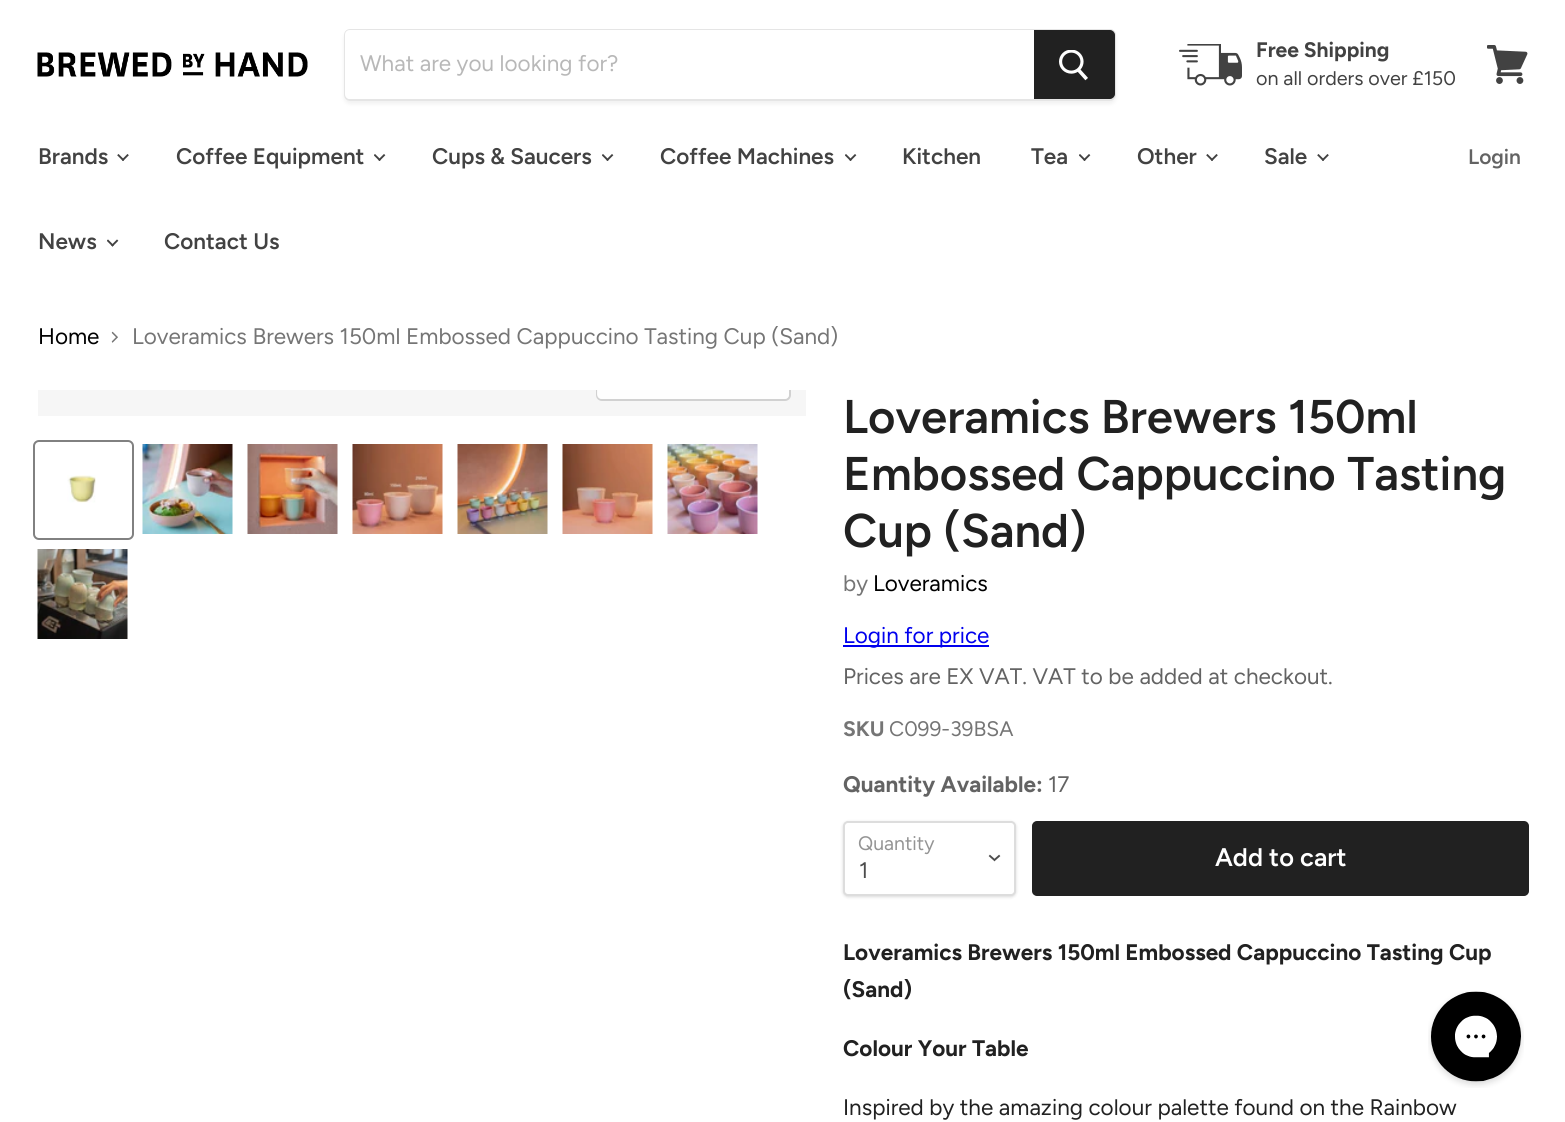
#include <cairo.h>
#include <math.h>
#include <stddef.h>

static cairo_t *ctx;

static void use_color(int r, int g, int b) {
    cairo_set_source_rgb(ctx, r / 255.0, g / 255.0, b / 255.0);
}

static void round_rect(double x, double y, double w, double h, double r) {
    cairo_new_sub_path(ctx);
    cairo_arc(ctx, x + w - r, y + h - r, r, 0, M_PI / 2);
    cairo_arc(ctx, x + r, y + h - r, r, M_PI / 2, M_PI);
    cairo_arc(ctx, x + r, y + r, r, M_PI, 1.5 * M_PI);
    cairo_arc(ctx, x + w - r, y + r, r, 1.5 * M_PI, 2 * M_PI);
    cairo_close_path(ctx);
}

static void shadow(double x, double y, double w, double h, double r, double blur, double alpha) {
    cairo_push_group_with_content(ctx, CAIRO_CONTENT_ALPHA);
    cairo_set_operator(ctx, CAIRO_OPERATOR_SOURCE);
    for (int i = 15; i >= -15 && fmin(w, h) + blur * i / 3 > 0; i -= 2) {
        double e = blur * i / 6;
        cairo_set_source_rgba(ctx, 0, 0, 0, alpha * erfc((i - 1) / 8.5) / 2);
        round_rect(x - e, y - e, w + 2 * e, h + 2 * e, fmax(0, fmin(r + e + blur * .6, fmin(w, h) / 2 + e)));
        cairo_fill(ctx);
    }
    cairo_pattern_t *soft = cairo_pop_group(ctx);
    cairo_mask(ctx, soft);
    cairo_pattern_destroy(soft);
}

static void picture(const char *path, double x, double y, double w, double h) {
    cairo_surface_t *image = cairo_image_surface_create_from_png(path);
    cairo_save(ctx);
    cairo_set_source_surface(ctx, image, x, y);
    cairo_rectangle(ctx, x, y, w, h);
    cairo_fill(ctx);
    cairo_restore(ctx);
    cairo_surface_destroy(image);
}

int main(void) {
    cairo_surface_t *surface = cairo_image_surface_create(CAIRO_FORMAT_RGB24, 1565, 1122);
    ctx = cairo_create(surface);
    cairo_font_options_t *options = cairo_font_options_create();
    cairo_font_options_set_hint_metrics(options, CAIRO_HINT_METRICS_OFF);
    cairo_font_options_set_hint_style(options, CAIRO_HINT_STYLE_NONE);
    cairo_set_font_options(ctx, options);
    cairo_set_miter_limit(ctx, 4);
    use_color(255, 255, 255);
    cairo_paint(ctx);
    picture("img1.png", 37, 52, 271, 25);
    cairo_save(ctx);
    cairo_set_fill_rule(ctx, CAIRO_FILL_RULE_EVEN_ODD);
    cairo_new_path(ctx);
    cairo_move_to(ctx, 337, 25);
    cairo_line_to(ctx, 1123, 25);
    cairo_line_to(ctx, 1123, 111);
    cairo_line_to(ctx, 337, 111);
    cairo_close_path(ctx);
    cairo_move_to(ctx, 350, 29);
    cairo_line_to(ctx, 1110, 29);
    cairo_curve_to(ctx, 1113.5, 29, 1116, 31.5, 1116, 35);
    cairo_line_to(ctx, 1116, 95);
    cairo_curve_to(ctx, 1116, 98.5, 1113.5, 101, 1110, 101);
    cairo_line_to(ctx, 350, 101);
    cairo_curve_to(ctx, 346.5, 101, 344, 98.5, 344, 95);
    cairo_line_to(ctx, 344, 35);
    cairo_curve_to(ctx, 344, 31.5, 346.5, 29, 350, 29);
    cairo_close_path(ctx);
    cairo_clip(ctx);
    use_color(128, 128, 128);
    shadow(344, 32, 772, 72, 6, 2, 0.11);
    cairo_restore(ctx);
    round_rect(345, 30, 770, 70, 5);
    cairo_set_source_rgba(ctx, 0.502, 0.502, 0.502, 0.2);
    cairo_stroke(ctx);
    use_color(255, 255, 255);
    cairo_new_path(ctx);
    cairo_move_to(ctx, 350, 30);
    cairo_line_to(ctx, 1034, 30);
    cairo_line_to(ctx, 1034, 99);
    cairo_line_to(ctx, 350, 99);
    cairo_curve_to(ctx, 347, 99, 345, 97, 345, 94);
    cairo_line_to(ctx, 345, 35);
    cairo_curve_to(ctx, 345, 32, 347, 30, 350, 30);
    cairo_close_path(ctx);
    cairo_fill(ctx);
    cairo_select_font_face(ctx, "Figtree", CAIRO_FONT_SLANT_NORMAL, CAIRO_FONT_WEIGHT_NORMAL);
    cairo_set_font_size(ctx, 22.5);
    use_color(184, 184, 184);
    cairo_move_to(ctx, 360, 71);
    cairo_show_text(ctx, "What are you looking for?");
    use_color(33, 33, 33);
    cairo_new_path(ctx);
    cairo_move_to(ctx, 1035, 31);
    cairo_line_to(ctx, 1110, 31);
    cairo_curve_to(ctx, 1112, 31, 1114, 33, 1114, 35);
    cairo_line_to(ctx, 1114, 94);
    cairo_curve_to(ctx, 1114, 96, 1112, 98, 1110, 98);
    cairo_line_to(ctx, 1035, 98);
    cairo_close_path(ctx);
    cairo_fill_preserve(ctx);
    cairo_stroke(ctx);
    picture("img2.png", 1059, 50, 29, 31);
    picture("img3.png", 1179, 44, 63, 42);
    cairo_select_font_face(ctx, "Figtree", CAIRO_FONT_SLANT_NORMAL, CAIRO_FONT_WEIGHT_BOLD);
    cairo_set_font_size(ctx, 21);
    use_color(66, 66, 66);
    cairo_move_to(ctx, 1256, 57);
    cairo_show_text(ctx, "Free Shipping");
    cairo_select_font_face(ctx, "Figtree", CAIRO_FONT_SLANT_NORMAL, CAIRO_FONT_WEIGHT_NORMAL);
    cairo_set_font_size(ctx, 19.75);
    cairo_move_to(ctx, 1256, 85);
    cairo_show_text(ctx, "on all orders over £150");
    picture("img4.png", 1487, 45, 41, 39);
    cairo_select_font_face(ctx, "Figtree SemiBold", CAIRO_FONT_SLANT_NORMAL, CAIRO_FONT_WEIGHT_NORMAL);
    cairo_set_font_size(ctx, 22.5);
    cairo_move_to(ctx, 38, 164);
    cairo_show_text(ctx, "Brands");
    picture("img5.png", 117, 154, 12, 7);
    cairo_move_to(ctx, 176, 164);
    cairo_show_text(ctx, "Coffee Equipment");
    picture("img6.png", 374, 154, 12, 7);
    cairo_move_to(ctx, 432, 164);
    cairo_show_text(ctx, "Cups & Saucers");
    picture("img6.png", 602, 154, 12, 7);
    cairo_move_to(ctx, 660, 164);
    cairo_show_text(ctx, "Coffee Machines");
    picture("img6.png", 845, 154, 12, 7);
    cairo_move_to(ctx, 902, 164);
    cairo_show_text(ctx, "Kitchen");
    cairo_move_to(ctx, 1031, 164);
    cairo_show_text(ctx, "Tea");
    picture("img6.png", 1079, 154, 12, 7);
    cairo_move_to(ctx, 1137, 164);
    cairo_show_text(ctx, "Other");
    picture("img5.png", 1206, 154, 12, 7);
    cairo_move_to(ctx, 1264, 164);
    cairo_show_text(ctx, "Sale");
    picture("img5.png", 1317, 154, 12, 7);
    cairo_move_to(ctx, 38, 249);
    cairo_show_text(ctx, "News");
    picture("img7.png", 107, 239, 12, 8);
    cairo_move_to(ctx, 164, 249);
    cairo_show_text(ctx, "Contact Us");
    cairo_set_font_size(ctx, 21);
    use_color(99, 99, 99);
    cairo_move_to(ctx, 1468, 164);
    cairo_show_text(ctx, "Login");
    cairo_select_font_face(ctx, "Figtree", CAIRO_FONT_SLANT_NORMAL, CAIRO_FONT_WEIGHT_NORMAL);
    cairo_set_font_size(ctx, 22.5);
    use_color(0, 0, 0);
    cairo_move_to(ctx, 38, 344);
    cairo_show_text(ctx, "Home");
    picture("img8.png", 111, 331, 7, 12);
    use_color(117, 117, 117);
    cairo_move_to(ctx, 132, 344);
    cairo_show_text(ctx, "Loveramics Brewers 150ml Embossed Cappuccino Tasting Cup (Sand)");
    use_color(246, 246, 246);
    cairo_rectangle(ctx, 38, 390, 768, 26);
    cairo_fill(ctx);
    cairo_save(ctx);
    cairo_rectangle(ctx, 38, 390, 768, 26);
    cairo_clip(ctx);
    round_rect(597, 358, 193, 42, 5);
    use_color(209, 209, 209);
    cairo_stroke(ctx);
    cairo_restore(ctx);
    cairo_set_source_rgba(ctx, 1, 1, 1, 0.9);
    cairo_new_path(ctx);
    cairo_move_to(ctx, 597, 390);
    cairo_line_to(ctx, 789, 390);
    cairo_line_to(ctx, 789, 394);
    cairo_curve_to(ctx, 789, 397, 787, 399, 784, 399);
    cairo_line_to(ctx, 602, 399);
    cairo_curve_to(ctx, 599, 399, 597, 397, 597, 394);
    cairo_close_path(ctx);
    cairo_fill(ctx);
    round_rect(34, 441, 99, 98, 5);
    use_color(129, 129, 129);
    cairo_stroke(ctx);
    picture("img9.png", 67, 475, 29, 28);
    picture("img10.png", 142, 444, 91, 90);
    picture("img11.png", 247, 444, 91, 90);
    picture("img12.png", 352, 444, 91, 90);
    picture("img13.png", 457, 444, 91, 90);
    picture("img14.png", 562, 444, 91, 90);
    picture("img15.png", 667, 444, 91, 90);
    picture("img16.png", 37, 549, 91, 90);
    cairo_select_font_face(ctx, "Figtree SemiBold", CAIRO_FONT_SLANT_NORMAL, CAIRO_FONT_WEIGHT_NORMAL);
    cairo_set_font_size(ctx, 47.25);
    use_color(33, 33, 33);
    cairo_move_to(ctx, 843, 433);
    cairo_show_text(ctx, "Loveramics Brewers 150ml");
    cairo_move_to(ctx, 843, 490);
    cairo_show_text(ctx, "Embossed Cappuccino Tasting");
    cairo_move_to(ctx, 843, 547);
    cairo_show_text(ctx, "Cup (Sand)");
    cairo_select_font_face(ctx, "Figtree", CAIRO_FONT_SLANT_NORMAL, CAIRO_FONT_WEIGHT_NORMAL);
    cairo_set_font_size(ctx, 22.5);
    use_color(117, 117, 117);
    cairo_move_to(ctx, 843, 591);
    cairo_show_text(ctx, "by");
    use_color(0, 0, 0);
    cairo_move_to(ctx, 873, 591);
    cairo_show_text(ctx, "Loveramics");
    use_color(0, 0, 238);
    cairo_rectangle(ctx, 843, 645, 146, 2);
    cairo_fill(ctx);
    cairo_move_to(ctx, 843, 643);
    cairo_show_text(ctx, "Login for price");
    use_color(99, 99, 99);
    cairo_move_to(ctx, 843, 684);
    cairo_show_text(ctx, "Prices are EX VAT. VAT to be added at checkout.");
    cairo_select_font_face(ctx, "Figtree", CAIRO_FONT_SLANT_NORMAL, CAIRO_FONT_WEIGHT_BOLD);
    cairo_set_font_size(ctx, 21);
    use_color(117, 117, 117);
    cairo_move_to(ctx, 843, 736);
    cairo_show_text(ctx, "SKU");
    cairo_select_font_face(ctx, "Figtree", CAIRO_FONT_SLANT_NORMAL, CAIRO_FONT_WEIGHT_NORMAL);
    cairo_move_to(ctx, 889, 736);
    cairo_show_text(ctx, "C099-39BSA");
    cairo_select_font_face(ctx, "Figtree", CAIRO_FONT_SLANT_NORMAL, CAIRO_FONT_WEIGHT_BOLD);
    cairo_set_font_size(ctx, 22.5);
    use_color(99, 99, 99);
    cairo_move_to(ctx, 843, 792);
    cairo_show_text(ctx, "Quantity Available:");
    cairo_select_font_face(ctx, "Figtree", CAIRO_FONT_SLANT_NORMAL, CAIRO_FONT_WEIGHT_NORMAL);
    cairo_move_to(ctx, 1048, 792);
    cairo_show_text(ctx, "17");
    use_color(0, 0, 0);
    shadow(843, 822, 173, 75, 5, 1.5, 0.15);
    use_color(255, 255, 255);
    round_rect(844, 822, 171, 73, 4);
    cairo_fill_preserve(ctx);
    use_color(221, 221, 221);
    cairo_stroke(ctx);
    cairo_set_font_size(ctx, 19.5);
    use_color(148, 148, 148);
    cairo_move_to(ctx, 858, 850);
    cairo_show_text(ctx, "Quantity");
    cairo_new_path(ctx);
    cairo_move_to(ctx, 994.5, 860);
    cairo_line_to(ctx, 999, 856);
    cairo_move_to(ctx, 994.5, 860);
    cairo_line_to(ctx, 990, 856);
    use_color(77, 77, 77);
    cairo_set_line_width(ctx, 1.9);
    cairo_set_line_cap(ctx, CAIRO_LINE_CAP_SQUARE);
    cairo_stroke(ctx);
    cairo_set_font_size(ctx, 22.5);
    cairo_move_to(ctx, 859, 878);
    cairo_show_text(ctx, "1");
    use_color(33, 33, 33);
    round_rect(1033, 822, 495, 73, 4);
    cairo_fill_preserve(ctx);
    cairo_set_line_width(ctx, 2);
    cairo_set_line_cap(ctx, CAIRO_LINE_CAP_BUTT);
    cairo_stroke(ctx);
    cairo_select_font_face(ctx, "Figtree SemiBold", CAIRO_FONT_SLANT_NORMAL, CAIRO_FONT_WEIGHT_NORMAL);
    cairo_set_font_size(ctx, 25.5);
    use_color(255, 255, 255);
    cairo_move_to(ctx, 1215, 866);
    cairo_show_text(ctx, "Add to cart");
    cairo_select_font_face(ctx, "Figtree", CAIRO_FONT_SLANT_NORMAL, CAIRO_FONT_WEIGHT_BOLD);
    cairo_set_font_size(ctx, 22.5);
    use_color(33, 33, 33);
    cairo_move_to(ctx, 843, 960);
    cairo_show_text(ctx, "Loveramics Brewers 150ml Embossed Cappuccino Tasting Cup");
    cairo_move_to(ctx, 843, 997);
    cairo_show_text(ctx, "(Sand)");
    cairo_move_to(ctx, 843, 1056);
    cairo_show_text(ctx, "Colour Your Table");
    cairo_select_font_face(ctx, "Figtree", CAIRO_FONT_SLANT_NORMAL, CAIRO_FONT_WEIGHT_NORMAL);
    cairo_move_to(ctx, 843, 1115);
    cairo_show_text(ctx, "Inspired by the amazing colour palette found on the Rainbow");
    picture("img17.png", 1428, 991, 96, 97);
    cairo_surface_write_to_png(surface, "result.png");
    cairo_font_options_destroy(options);
    cairo_destroy(ctx);
    cairo_surface_destroy(surface);
    return 0;
}
